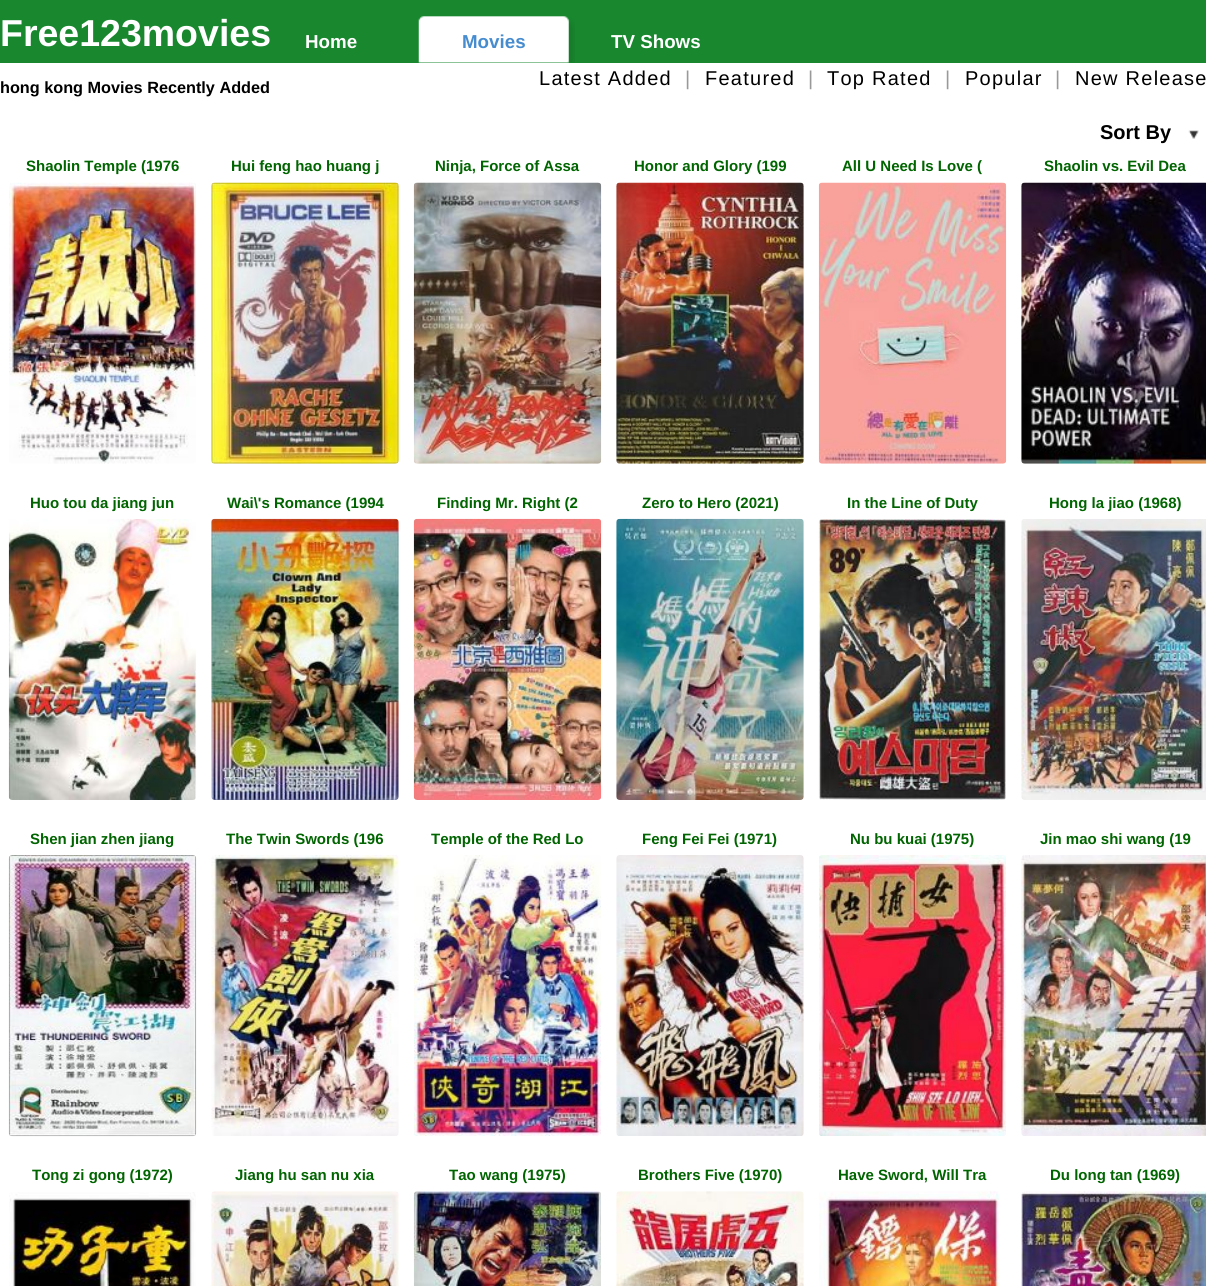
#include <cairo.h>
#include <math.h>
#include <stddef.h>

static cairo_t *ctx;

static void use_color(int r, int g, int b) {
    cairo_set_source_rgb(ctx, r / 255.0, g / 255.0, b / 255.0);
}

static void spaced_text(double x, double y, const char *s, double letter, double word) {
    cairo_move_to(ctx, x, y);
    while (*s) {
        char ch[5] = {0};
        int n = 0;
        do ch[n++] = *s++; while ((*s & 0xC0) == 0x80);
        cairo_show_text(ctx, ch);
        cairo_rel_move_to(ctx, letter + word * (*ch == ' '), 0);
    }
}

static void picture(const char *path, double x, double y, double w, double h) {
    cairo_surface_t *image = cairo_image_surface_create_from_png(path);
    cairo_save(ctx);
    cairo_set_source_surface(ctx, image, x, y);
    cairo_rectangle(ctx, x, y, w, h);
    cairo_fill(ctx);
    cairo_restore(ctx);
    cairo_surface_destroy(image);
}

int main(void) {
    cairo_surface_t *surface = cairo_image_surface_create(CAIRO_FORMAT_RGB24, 1206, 1286);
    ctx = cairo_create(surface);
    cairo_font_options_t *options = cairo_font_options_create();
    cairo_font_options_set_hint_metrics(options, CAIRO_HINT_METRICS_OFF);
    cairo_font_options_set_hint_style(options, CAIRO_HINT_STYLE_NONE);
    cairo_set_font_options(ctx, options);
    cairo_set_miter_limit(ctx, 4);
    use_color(255, 255, 255);
    cairo_paint(ctx);
    use_color(24, 135, 46);
    cairo_rectangle(ctx, 0, 0, 1206, 63);
    cairo_fill(ctx);
    cairo_select_font_face(ctx, "Liberation Sans", CAIRO_FONT_SLANT_NORMAL, CAIRO_FONT_WEIGHT_BOLD);
    cairo_set_font_size(ctx, 37.5);
    use_color(255, 255, 255);
    cairo_move_to(ctx, 0, 46);
    cairo_show_text(ctx, "Free123movies");
    cairo_set_font_size(ctx, 18.75);
    cairo_move_to(ctx, 305, 48);
    cairo_show_text(ctx, "Home");
    picture("img1.png", 418, 16, 157, 47);
    use_color(70, 140, 207);
    cairo_move_to(ctx, 462, 48);
    cairo_show_text(ctx, "Movies");
    use_color(255, 255, 255);
    cairo_move_to(ctx, 611, 48);
    cairo_show_text(ctx, "TV Shows");
    cairo_set_font_size(ctx, 16.25);
    use_color(0, 0, 0);
    cairo_move_to(ctx, 0, 93);
    cairo_show_text(ctx, "hong kong Movies Recently Added");
    cairo_select_font_face(ctx, "Liberation Sans", CAIRO_FONT_SLANT_NORMAL, CAIRO_FONT_WEIGHT_NORMAL);
    cairo_set_font_size(ctx, 20);
    spaced_text(539, 85, "Latest Added", 1.25, 0);
    use_color(153, 153, 153);
    spaced_text(685, 85, "|", 1.25, 0);
    use_color(0, 0, 0);
    spaced_text(705, 85, "Featured", 1.25, 0);
    use_color(153, 153, 153);
    spaced_text(808, 85, "|", 1.25, 0);
    use_color(0, 0, 0);
    spaced_text(827, 85, "Top Rated", 1.25, 0);
    use_color(153, 153, 153);
    spaced_text(945, 85, "|", 1.25, 0);
    use_color(0, 0, 0);
    spaced_text(965, 85, "Popular", 1.25, 0);
    use_color(153, 153, 153);
    spaced_text(1055, 85, "|", 1.25, 0);
    use_color(0, 0, 0);
    spaced_text(1075, 85, "New Release", 1.25, 0);
    cairo_select_font_face(ctx, "Liberation Sans", CAIRO_FONT_SLANT_NORMAL, CAIRO_FONT_WEIGHT_BOLD);
    cairo_move_to(ctx, 1100, 139);
    cairo_show_text(ctx, "Sort By");
    picture("img2.png", 1188, 130, 11, 9);
    cairo_set_font_size(ctx, 15);
    use_color(0, 100, 0);
    cairo_move_to(ctx, 26, 171);
    cairo_show_text(ctx, "Shaolin Temple (1976");
    picture("img3.png", 9, 182, 187, 282);
    cairo_move_to(ctx, 231, 171);
    cairo_show_text(ctx, "Hui feng hao huang j");
    picture("img4.png", 211, 182, 188, 282);
    cairo_move_to(ctx, 435, 171);
    cairo_show_text(ctx, "Ninja, Force of Assa");
    picture("img5.png", 413, 182, 189, 282);
    cairo_move_to(ctx, 634, 171);
    cairo_show_text(ctx, "Honor and Glory (199");
    picture("img6.png", 616, 182, 188, 282);
    cairo_move_to(ctx, 842, 171);
    cairo_show_text(ctx, "All U Need Is Love (");
    picture("img7.png", 818, 182, 189, 282);
    cairo_move_to(ctx, 1044, 171);
    cairo_show_text(ctx, "Shaolin vs. Evil Dea");
    picture("img8.png", 1021, 182, 185, 282);
    cairo_move_to(ctx, 30, 508);
    cairo_show_text(ctx, "Huo tou da jiang jun");
    picture("img9.png", 8, 519, 189, 281);
    cairo_move_to(ctx, 227, 508);
    cairo_show_text(ctx, "Wai\\'s Romance (1994");
    picture("img10.png", 211, 518, 188, 282);
    cairo_move_to(ctx, 437, 508);
    cairo_show_text(ctx, "Finding Mr. Right (2");
    picture("img11.png", 413, 518, 189, 282);
    cairo_move_to(ctx, 642, 508);
    cairo_show_text(ctx, "Zero to Hero (2021)");
    picture("img12.png", 616, 518, 188, 282);
    cairo_move_to(ctx, 847, 508);
    cairo_show_text(ctx, "In the Line of Duty");
    picture("img13.png", 818, 519, 188, 281);
    cairo_move_to(ctx, 1049, 508);
    cairo_show_text(ctx, "Hong la jiao (1968)");
    picture("img14.png", 1021, 519, 185, 281);
    cairo_move_to(ctx, 30, 844);
    cairo_show_text(ctx, "Shen jian zhen jiang");
    picture("img15.png", 8, 855, 189, 282);
    cairo_move_to(ctx, 226, 844);
    cairo_show_text(ctx, "The Twin Swords (196");
    picture("img16.png", 211, 855, 188, 281);
    cairo_move_to(ctx, 431, 844);
    cairo_show_text(ctx, "Temple of the Red Lo");
    picture("img17.png", 414, 855, 187, 281);
    cairo_move_to(ctx, 642, 844);
    cairo_show_text(ctx, "Feng Fei Fei (1971)");
    picture("img18.png", 616, 855, 188, 281);
    cairo_move_to(ctx, 850, 844);
    cairo_show_text(ctx, "Nu bu kuai (1975)");
    picture("img19.png", 819, 855, 187, 281);
    cairo_move_to(ctx, 1040, 844);
    cairo_show_text(ctx, "Jin mao shi wang (19");
    picture("img20.png", 1021, 855, 185, 281);
    cairo_move_to(ctx, 32, 1180);
    cairo_show_text(ctx, "Tong zi gong (1972)");
    picture("img21.png", 9, 1192, 187, 94);
    cairo_move_to(ctx, 235, 1180);
    cairo_show_text(ctx, "Jiang hu san nu xia");
    picture("img22.png", 211, 1191, 188, 95);
    cairo_move_to(ctx, 449, 1180);
    cairo_show_text(ctx, "Tao wang (1975)");
    picture("img23.png", 413, 1191, 188, 95);
    cairo_move_to(ctx, 638, 1180);
    cairo_show_text(ctx, "Brothers Five (1970)");
    picture("img24.png", 616, 1191, 188, 95);
    cairo_move_to(ctx, 838, 1180);
    cairo_show_text(ctx, "Have Sword, Will Tra");
    picture("img25.png", 819, 1191, 181, 95);
    cairo_move_to(ctx, 1050, 1180);
    cairo_show_text(ctx, "Du long tan (1969)");
    picture("img26.png", 1021, 1191, 185, 95);
    cairo_surface_write_to_png(surface, "result.png");
    cairo_font_options_destroy(options);
    cairo_destroy(ctx);
    cairo_surface_destroy(surface);
    return 0;
}
